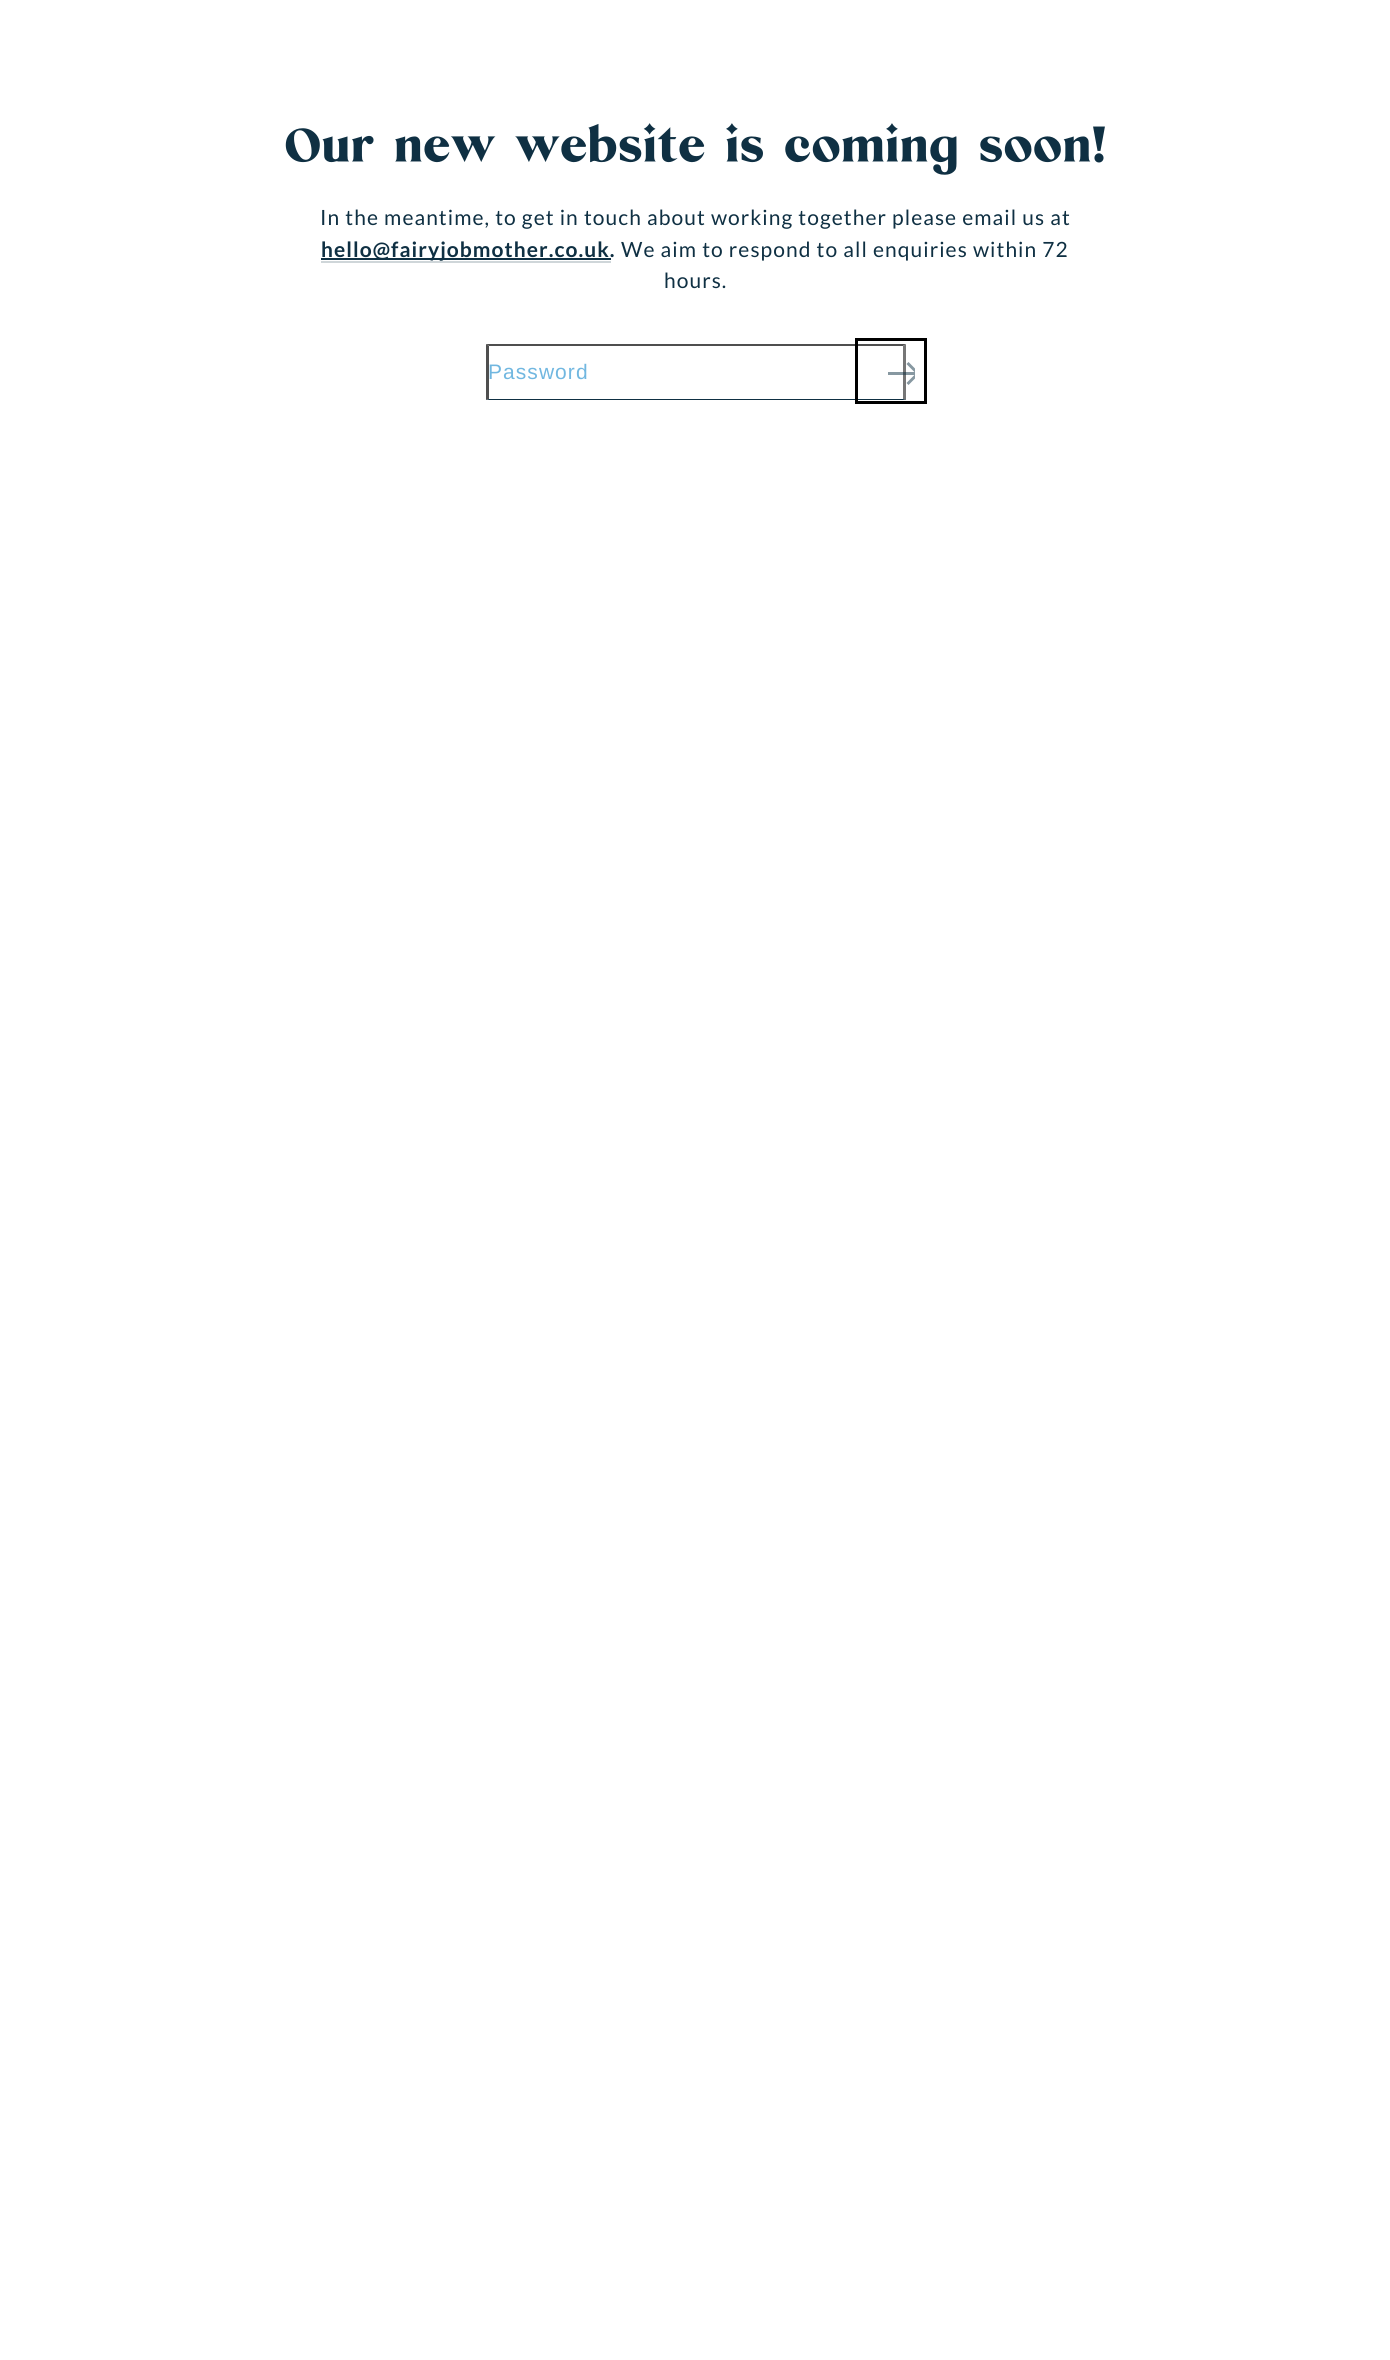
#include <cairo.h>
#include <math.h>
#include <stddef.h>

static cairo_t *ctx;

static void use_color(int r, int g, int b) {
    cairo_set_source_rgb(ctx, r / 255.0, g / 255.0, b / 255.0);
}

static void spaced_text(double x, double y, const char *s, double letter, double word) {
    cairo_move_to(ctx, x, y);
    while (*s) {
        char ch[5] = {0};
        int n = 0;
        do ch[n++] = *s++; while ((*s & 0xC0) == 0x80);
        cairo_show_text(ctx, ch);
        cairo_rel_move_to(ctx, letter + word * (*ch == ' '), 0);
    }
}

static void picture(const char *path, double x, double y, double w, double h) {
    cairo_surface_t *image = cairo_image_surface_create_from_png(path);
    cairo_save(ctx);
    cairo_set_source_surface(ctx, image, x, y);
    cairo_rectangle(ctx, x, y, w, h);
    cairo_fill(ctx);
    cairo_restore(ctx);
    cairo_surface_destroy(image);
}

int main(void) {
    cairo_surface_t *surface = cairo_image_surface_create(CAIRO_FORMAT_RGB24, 1390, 2360);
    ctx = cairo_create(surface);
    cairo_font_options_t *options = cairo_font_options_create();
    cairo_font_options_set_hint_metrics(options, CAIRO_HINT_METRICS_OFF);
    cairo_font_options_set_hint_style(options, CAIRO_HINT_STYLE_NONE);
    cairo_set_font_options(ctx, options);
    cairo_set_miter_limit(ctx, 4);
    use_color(255, 255, 255);
    cairo_paint(ctx);
    picture("img1.png", 285, 123, 820, 52);
    cairo_select_font_face(ctx, "Lato", CAIRO_FONT_SLANT_NORMAL, CAIRO_FONT_WEIGHT_NORMAL);
    cairo_set_font_size(ctx, 21);
    use_color(15, 48, 67);
    spaced_text(320, 225, "In the meantime, to get in touch about working together please email us at", 1.05, 0);
    cairo_rectangle(ctx, 321, 258, 290, 2);
    cairo_fill(ctx);
    cairo_select_font_face(ctx, "Lato", CAIRO_FONT_SLANT_NORMAL, CAIRO_FONT_WEIGHT_BOLD);
    spaced_text(321, 257, "hello@fairyjobmother.co.uk.", 1.05, 0);
    use_color(207, 214, 217);
    cairo_rectangle(ctx, 321, 261, 290, 2);
    cairo_fill(ctx);
    cairo_select_font_face(ctx, "Lato", CAIRO_FONT_SLANT_NORMAL, CAIRO_FONT_WEIGHT_NORMAL);
    use_color(15, 48, 67);
    spaced_text(621, 257, "We aim to respond to all enquiries within 72", 1.05, 0);
    spaced_text(664, 288, "hours.", 1.05, 0);
    use_color(79, 79, 79);
    cairo_new_path(ctx);
    cairo_move_to(ctx, 486, 344);
    cairo_line_to(ctx, 906, 344);
    cairo_line_to(ctx, 903, 346);
    cairo_line_to(ctx, 489, 346);
    cairo_close_path(ctx);
    cairo_fill(ctx);
    use_color(118, 118, 118);
    cairo_new_path(ctx);
    cairo_move_to(ctx, 906, 344);
    cairo_line_to(ctx, 906, 400);
    cairo_line_to(ctx, 903, 399);
    cairo_line_to(ctx, 903, 346);
    cairo_close_path(ctx);
    cairo_fill(ctx);
    use_color(15, 48, 67);
    cairo_new_path(ctx);
    cairo_move_to(ctx, 906, 400);
    cairo_line_to(ctx, 486, 400);
    cairo_line_to(ctx, 489, 399);
    cairo_line_to(ctx, 903, 399);
    cairo_close_path(ctx);
    cairo_fill(ctx);
    use_color(79, 79, 79);
    cairo_new_path(ctx);
    cairo_move_to(ctx, 486, 400);
    cairo_line_to(ctx, 486, 344);
    cairo_line_to(ctx, 489, 346);
    cairo_line_to(ctx, 489, 399);
    cairo_close_path(ctx);
    cairo_fill(ctx);
    cairo_select_font_face(ctx, "Liberation Sans", CAIRO_FONT_SLANT_NORMAL, CAIRO_FONT_WEIGHT_NORMAL);
    use_color(113, 183, 224);
    spaced_text(488, 379, "Password", 1.05, 0);
    cairo_rectangle(ctx, 856.5, 339.5, 69, 63);
    use_color(0, 0, 0);
    cairo_set_line_width(ctx, 3);
    cairo_stroke(ctx);
    picture("img2.png", 888, 362, 27, 23);
    cairo_surface_write_to_png(surface, "result.png");
    cairo_font_options_destroy(options);
    cairo_destroy(ctx);
    cairo_surface_destroy(surface);
    return 0;
}
